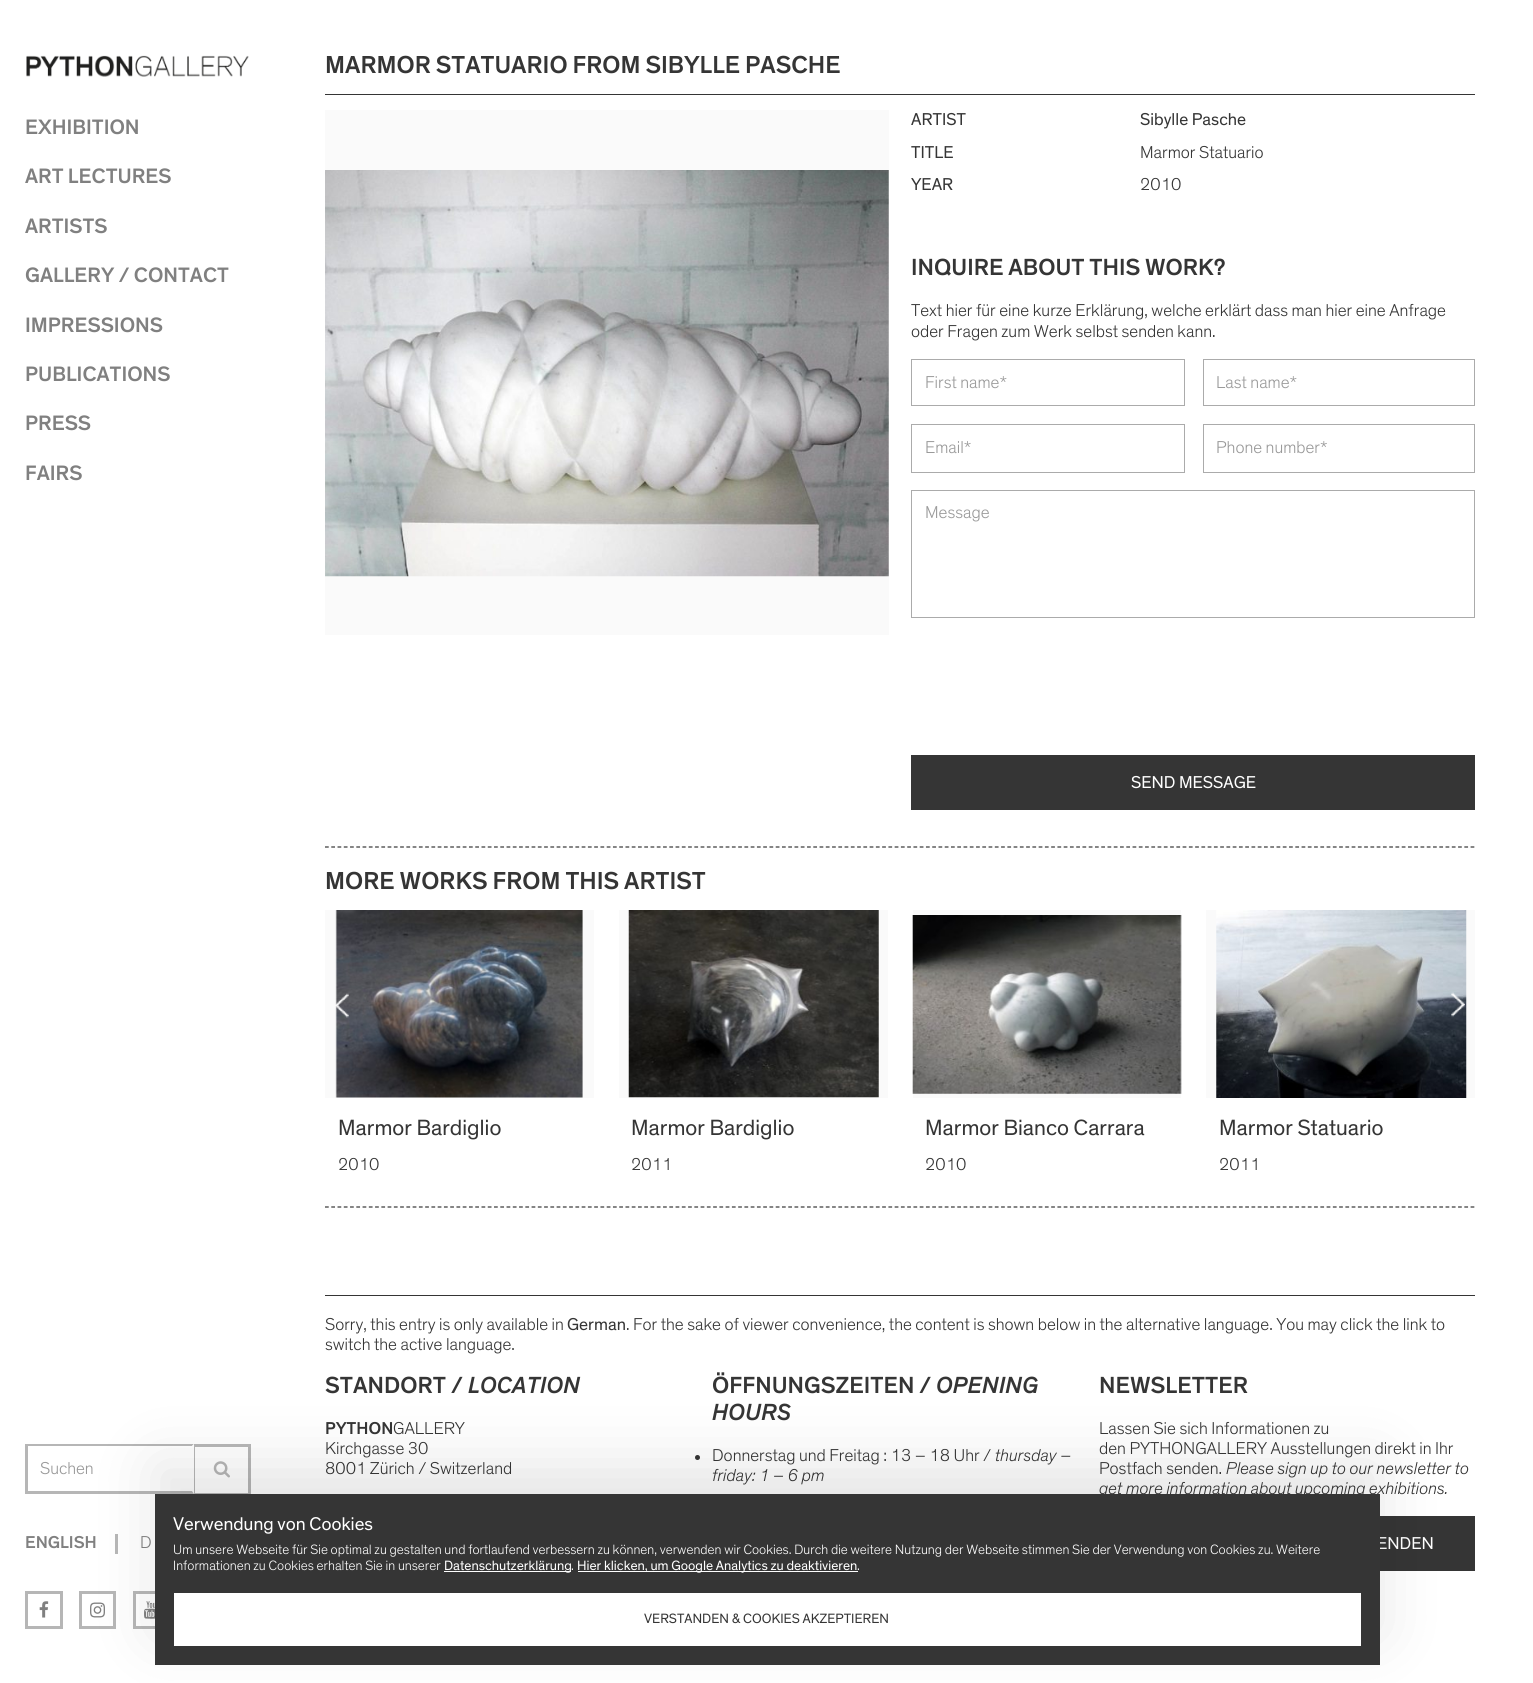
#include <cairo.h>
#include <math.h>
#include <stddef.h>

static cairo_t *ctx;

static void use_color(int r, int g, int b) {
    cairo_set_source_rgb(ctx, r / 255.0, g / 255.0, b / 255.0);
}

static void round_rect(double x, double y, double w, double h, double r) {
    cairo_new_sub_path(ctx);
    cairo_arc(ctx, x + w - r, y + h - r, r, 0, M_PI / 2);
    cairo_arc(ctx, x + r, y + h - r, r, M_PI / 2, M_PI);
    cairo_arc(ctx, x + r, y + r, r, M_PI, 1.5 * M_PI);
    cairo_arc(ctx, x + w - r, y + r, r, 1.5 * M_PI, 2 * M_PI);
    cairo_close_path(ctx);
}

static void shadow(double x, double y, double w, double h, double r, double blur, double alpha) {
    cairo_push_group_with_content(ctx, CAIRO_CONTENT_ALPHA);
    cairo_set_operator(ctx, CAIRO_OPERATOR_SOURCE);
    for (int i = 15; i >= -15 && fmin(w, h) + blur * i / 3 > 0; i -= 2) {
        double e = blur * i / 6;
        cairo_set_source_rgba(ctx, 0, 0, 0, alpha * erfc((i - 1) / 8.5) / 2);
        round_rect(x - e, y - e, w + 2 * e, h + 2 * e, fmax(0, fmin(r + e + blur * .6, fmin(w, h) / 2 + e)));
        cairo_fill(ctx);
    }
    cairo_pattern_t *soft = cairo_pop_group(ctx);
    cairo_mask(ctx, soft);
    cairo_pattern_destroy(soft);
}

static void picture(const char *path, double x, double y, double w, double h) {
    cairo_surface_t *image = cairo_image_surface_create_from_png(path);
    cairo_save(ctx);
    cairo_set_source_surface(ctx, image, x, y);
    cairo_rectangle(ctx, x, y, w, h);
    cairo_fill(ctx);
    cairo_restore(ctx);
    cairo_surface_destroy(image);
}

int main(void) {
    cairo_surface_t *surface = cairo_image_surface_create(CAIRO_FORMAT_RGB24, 1533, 1683);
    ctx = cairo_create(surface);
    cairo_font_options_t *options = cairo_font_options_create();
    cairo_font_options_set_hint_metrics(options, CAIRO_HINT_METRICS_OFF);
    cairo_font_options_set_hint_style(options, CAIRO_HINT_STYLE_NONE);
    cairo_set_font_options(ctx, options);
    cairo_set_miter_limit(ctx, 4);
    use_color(255, 255, 255);
    cairo_paint(ctx);
    picture("img1.png", 26, 55, 223, 22);
    cairo_select_font_face(ctx, "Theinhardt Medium", CAIRO_FONT_SLANT_NORMAL, CAIRO_FONT_WEIGHT_NORMAL);
    cairo_set_font_size(ctx, 21.25);
    use_color(128, 128, 128);
    cairo_move_to(ctx, 25, 134);
    cairo_show_text(ctx, "EXHIBITION");
    cairo_move_to(ctx, 25, 183);
    cairo_show_text(ctx, "ART LECTURES");
    cairo_move_to(ctx, 25, 233);
    cairo_show_text(ctx, "ARTISTS");
    cairo_move_to(ctx, 25, 282);
    cairo_show_text(ctx, "GALLERY / CONTACT");
    cairo_move_to(ctx, 25, 332);
    cairo_show_text(ctx, "IMPRESSIONS");
    cairo_move_to(ctx, 25, 381);
    cairo_show_text(ctx, "PUBLICATIONS");
    cairo_move_to(ctx, 25, 430);
    cairo_show_text(ctx, "PRESS");
    cairo_move_to(ctx, 25, 480);
    cairo_show_text(ctx, "FAIRS");
    use_color(182, 182, 182);
    cairo_new_path(ctx);
    cairo_move_to(ctx, 25, 1444);
    cairo_line_to(ctx, 194, 1444);
    cairo_line_to(ctx, 192, 1446);
    cairo_line_to(ctx, 28, 1446);
    cairo_close_path(ctx);
    cairo_fill(ctx);
    use_color(255, 255, 255);
    cairo_new_path(ctx);
    cairo_move_to(ctx, 194, 1444);
    cairo_line_to(ctx, 194, 1494);
    cairo_line_to(ctx, 192, 1491);
    cairo_line_to(ctx, 192, 1446);
    cairo_close_path(ctx);
    cairo_fill(ctx);
    use_color(182, 182, 182);
    cairo_new_path(ctx);
    cairo_move_to(ctx, 194, 1494);
    cairo_line_to(ctx, 25, 1494);
    cairo_line_to(ctx, 28, 1491);
    cairo_line_to(ctx, 192, 1491);
    cairo_close_path(ctx);
    cairo_fill(ctx);
    cairo_rectangle(ctx, 25, 1444, 3, 50);
    cairo_fill(ctx);
    cairo_select_font_face(ctx, "Theinhardt Light", CAIRO_FONT_SLANT_NORMAL, CAIRO_FONT_WEIGHT_NORMAL);
    cairo_set_font_size(ctx, 17.5);
    use_color(153, 153, 153);
    cairo_move_to(ctx, 40, 1474);
    cairo_show_text(ctx, "Suchen");
    use_color(182, 182, 182);
    cairo_rectangle(ctx, 194, 1444, 56, 3);
    cairo_fill(ctx);
    cairo_rectangle(ctx, 248, 1444, 3, 51);
    cairo_fill(ctx);
    cairo_rectangle(ctx, 194, 1493, 56, 1);
    cairo_fill(ctx);
    cairo_rectangle(ctx, 194, 1444, 1, 51);
    cairo_fill(ctx);
    picture("img2.png", 213, 1461, 17, 17);
    cairo_rectangle(ctx, 115, 1534, 3, 20);
    cairo_fill(ctx);
    cairo_select_font_face(ctx, "Theinhardt Medium", CAIRO_FONT_SLANT_NORMAL, CAIRO_FONT_WEIGHT_NORMAL);
    use_color(128, 128, 128);
    cairo_move_to(ctx, 25, 1548);
    cairo_show_text(ctx, "ENGLISH");
    cairo_select_font_face(ctx, "Theinhardt Light", CAIRO_FONT_SLANT_NORMAL, CAIRO_FONT_WEIGHT_NORMAL);
    cairo_move_to(ctx, 140, 1548);
    cairo_show_text(ctx, "D");
    cairo_rectangle(ctx, 26.5, 1592.5, 35, 35);
    use_color(182, 182, 182);
    cairo_set_line_width(ctx, 3);
    cairo_stroke(ctx);
    picture("img3.png", 39, 1601, 10, 17);
    cairo_rectangle(ctx, 80.5, 1592.5, 34, 35);
    cairo_stroke(ctx);
    picture("img4.png", 90, 1602, 15, 16);
    cairo_rectangle(ctx, 134.5, 1592.5, 34, 35);
    cairo_stroke(ctx);
    picture("img5.png", 144, 1601, 11, 18);
    use_color(53, 53, 53);
    cairo_rectangle(ctx, 325, 94, 1150, 1);
    cairo_fill(ctx);
    cairo_select_font_face(ctx, "Theinhardt Medium", CAIRO_FONT_SLANT_NORMAL, CAIRO_FONT_WEIGHT_NORMAL);
    cairo_set_font_size(ctx, 25);
    cairo_move_to(ctx, 325, 73);
    cairo_show_text(ctx, "MARMOR STATUARIO FROM SIBYLLE PASCHE");
    cairo_new_path(ctx);
    cairo_move_to(ctx, 325, 847);
    cairo_line_to(ctx, 1475, 847);
    cairo_set_line_width(ctx, 1.2);
    cairo_set_dash(ctx, (double[]){3.75, 2.51}, 2, 0);
    cairo_stroke(ctx);
    use_color(250, 250, 250);
    cairo_rectangle(ctx, 325, 110, 564, 525);
    cairo_fill(ctx);
    picture("img6.png", 325, 170, 564, 407);
    cairo_select_font_face(ctx, "Theinhardt", CAIRO_FONT_SLANT_NORMAL, CAIRO_FONT_WEIGHT_NORMAL);
    cairo_set_font_size(ctx, 17.5);
    use_color(53, 53, 53);
    cairo_move_to(ctx, 911, 125);
    cairo_show_text(ctx, "ARTIST");
    cairo_move_to(ctx, 1140, 125);
    cairo_show_text(ctx, "Sibylle Pasche");
    cairo_move_to(ctx, 911, 158);
    cairo_show_text(ctx, "TITLE");
    cairo_select_font_face(ctx, "Theinhardt Light", CAIRO_FONT_SLANT_NORMAL, CAIRO_FONT_WEIGHT_NORMAL);
    cairo_move_to(ctx, 1140, 158);
    cairo_show_text(ctx, "Marmor Statuario");
    cairo_select_font_face(ctx, "Theinhardt", CAIRO_FONT_SLANT_NORMAL, CAIRO_FONT_WEIGHT_NORMAL);
    cairo_move_to(ctx, 911, 190);
    cairo_show_text(ctx, "YEAR");
    cairo_select_font_face(ctx, "Theinhardt Light", CAIRO_FONT_SLANT_NORMAL, CAIRO_FONT_WEIGHT_NORMAL);
    cairo_move_to(ctx, 1140, 190);
    cairo_show_text(ctx, "2010");
    cairo_select_font_face(ctx, "Theinhardt Medium", CAIRO_FONT_SLANT_NORMAL, CAIRO_FONT_WEIGHT_NORMAL);
    cairo_set_font_size(ctx, 23.75);
    cairo_move_to(ctx, 911, 275);
    cairo_show_text(ctx, "INQUIRE ABOUT THIS WORK?");
    cairo_select_font_face(ctx, "Theinhardt Light", CAIRO_FONT_SLANT_NORMAL, CAIRO_FONT_WEIGHT_NORMAL);
    cairo_set_font_size(ctx, 17.5);
    cairo_move_to(ctx, 911, 316);
    cairo_show_text(ctx, "Text hier für eine kurze Erklärung, welche erklärt dass man hier eine Anfrage");
    cairo_move_to(ctx, 911, 337);
    cairo_show_text(ctx, "oder Fragen zum Werk selbst senden kann.");
    cairo_rectangle(ctx, 911.5, 359.5, 273, 46);
    use_color(171, 171, 171);
    cairo_set_line_width(ctx, 1);
    cairo_set_dash(ctx, NULL, 0, 0);
    cairo_stroke(ctx);
    use_color(153, 153, 153);
    cairo_move_to(ctx, 925, 388);
    cairo_show_text(ctx, "First name*");
    cairo_rectangle(ctx, 1203.5, 359.5, 271, 46);
    use_color(171, 171, 171);
    cairo_stroke(ctx);
    use_color(153, 153, 153);
    cairo_move_to(ctx, 1216, 388);
    cairo_show_text(ctx, "Last name*");
    cairo_rectangle(ctx, 911.5, 424.5, 273, 48);
    use_color(171, 171, 171);
    cairo_stroke(ctx);
    use_color(153, 153, 153);
    cairo_move_to(ctx, 925, 453);
    cairo_show_text(ctx, "Email*");
    cairo_rectangle(ctx, 1203.5, 424.5, 271, 48);
    use_color(171, 171, 171);
    cairo_stroke(ctx);
    use_color(153, 153, 153);
    cairo_move_to(ctx, 1216, 453);
    cairo_show_text(ctx, "Phone number*");
    cairo_rectangle(ctx, 911.5, 490.5, 563, 127);
    use_color(171, 171, 171);
    cairo_stroke(ctx);
    use_color(153, 153, 153);
    cairo_move_to(ctx, 925, 518);
    cairo_show_text(ctx, "Message");
    use_color(53, 53, 53);
    cairo_rectangle(ctx, 911, 755, 564, 55);
    cairo_fill(ctx);
    cairo_select_font_face(ctx, "Theinhardt", CAIRO_FONT_SLANT_NORMAL, CAIRO_FONT_WEIGHT_NORMAL);
    use_color(255, 255, 255);
    cairo_move_to(ctx, 1131, 788);
    cairo_show_text(ctx, "SEND MESSAGE");
    cairo_new_path(ctx);
    cairo_move_to(ctx, 325, 1207);
    cairo_line_to(ctx, 1475, 1207);
    use_color(53, 53, 53);
    cairo_set_line_width(ctx, 1.2);
    cairo_set_dash(ctx, (double[]){3.75, 2.51}, 2, 0);
    cairo_stroke(ctx);
    cairo_select_font_face(ctx, "Theinhardt Medium", CAIRO_FONT_SLANT_NORMAL, CAIRO_FONT_WEIGHT_NORMAL);
    cairo_set_font_size(ctx, 25);
    cairo_move_to(ctx, 325, 889);
    cairo_show_text(ctx, "MORE WORKS FROM THIS ARTIST");
    use_color(250, 250, 250);
    cairo_rectangle(ctx, 325, 910, 269, 188);
    cairo_fill(ctx);
    picture("img9.png", 335, 910, 248, 188);
    picture("img7.png", 335, 993, 14, 25);
    cairo_rectangle(ctx, 1206, 910, 269, 188);
    cairo_fill(ctx);
    picture("img12.png", 1216, 910, 251, 188);
    picture("img8.png", 1451, 992, 14, 25);
    cairo_select_font_face(ctx, "Theinhardt", CAIRO_FONT_SLANT_NORMAL, CAIRO_FONT_WEIGHT_NORMAL);
    cairo_set_font_size(ctx, 22.5);
    use_color(53, 53, 53);
    cairo_move_to(ctx, 338, 1135);
    cairo_show_text(ctx, "Marmor Bardiglio");
    cairo_select_font_face(ctx, "Theinhardt Light", CAIRO_FONT_SLANT_NORMAL, CAIRO_FONT_WEIGHT_NORMAL);
    cairo_set_font_size(ctx, 17.5);
    cairo_move_to(ctx, 338, 1170);
    cairo_show_text(ctx, "2010");
    use_color(250, 250, 250);
    cairo_rectangle(ctx, 619, 910, 269, 188);
    cairo_fill(ctx);
    picture("img10.png", 628, 910, 251, 188);
    cairo_select_font_face(ctx, "Theinhardt", CAIRO_FONT_SLANT_NORMAL, CAIRO_FONT_WEIGHT_NORMAL);
    cairo_set_font_size(ctx, 22.5);
    use_color(53, 53, 53);
    cairo_move_to(ctx, 631, 1135);
    cairo_show_text(ctx, "Marmor Bardiglio");
    cairo_select_font_face(ctx, "Theinhardt Light", CAIRO_FONT_SLANT_NORMAL, CAIRO_FONT_WEIGHT_NORMAL);
    cairo_set_font_size(ctx, 17.5);
    cairo_move_to(ctx, 631, 1170);
    cairo_show_text(ctx, "2011");
    use_color(250, 250, 250);
    cairo_rectangle(ctx, 913, 910, 268, 188);
    cairo_fill(ctx);
    picture("img11.png", 912, 915, 270, 179);
    cairo_select_font_face(ctx, "Theinhardt", CAIRO_FONT_SLANT_NORMAL, CAIRO_FONT_WEIGHT_NORMAL);
    cairo_set_font_size(ctx, 22.5);
    use_color(53, 53, 53);
    cairo_move_to(ctx, 925, 1135);
    cairo_show_text(ctx, "Marmor Bianco Carrara");
    cairo_select_font_face(ctx, "Theinhardt Light", CAIRO_FONT_SLANT_NORMAL, CAIRO_FONT_WEIGHT_NORMAL);
    cairo_set_font_size(ctx, 17.5);
    cairo_move_to(ctx, 925, 1170);
    cairo_show_text(ctx, "2010");
    cairo_select_font_face(ctx, "Theinhardt", CAIRO_FONT_SLANT_NORMAL, CAIRO_FONT_WEIGHT_NORMAL);
    cairo_set_font_size(ctx, 22.5);
    cairo_move_to(ctx, 1219, 1135);
    cairo_show_text(ctx, "Marmor Statuario");
    cairo_select_font_face(ctx, "Theinhardt Light", CAIRO_FONT_SLANT_NORMAL, CAIRO_FONT_WEIGHT_NORMAL);
    cairo_set_font_size(ctx, 17.5);
    cairo_move_to(ctx, 1219, 1170);
    cairo_show_text(ctx, "2011");
    cairo_rectangle(ctx, 325, 1295, 1150, 1);
    cairo_fill(ctx);
    cairo_move_to(ctx, 325, 1330);
    cairo_show_text(ctx, "Sorry, this entry is only available in");
    cairo_select_font_face(ctx, "Theinhardt", CAIRO_FONT_SLANT_NORMAL, CAIRO_FONT_WEIGHT_NORMAL);
    cairo_move_to(ctx, 567, 1330);
    cairo_show_text(ctx, "German");
    cairo_select_font_face(ctx, "Theinhardt Light", CAIRO_FONT_SLANT_NORMAL, CAIRO_FONT_WEIGHT_NORMAL);
    cairo_move_to(ctx, 626, 1330);
    cairo_show_text(ctx, ". For the sake of viewer convenience, the content is shown below in the alternative language. You may click the link to");
    cairo_move_to(ctx, 325, 1350);
    cairo_show_text(ctx, "switch the active language.");
    cairo_select_font_face(ctx, "Theinhardt Medium", CAIRO_FONT_SLANT_NORMAL, CAIRO_FONT_WEIGHT_NORMAL);
    cairo_set_font_size(ctx, 23.75);
    cairo_move_to(ctx, 325, 1393);
    cairo_show_text(ctx, "STANDORT /");
    cairo_select_font_face(ctx, "Theinhardt Medium", CAIRO_FONT_SLANT_ITALIC, CAIRO_FONT_WEIGHT_NORMAL);
    cairo_move_to(ctx, 468, 1393);
    cairo_show_text(ctx, "LOCATION");
    cairo_select_font_face(ctx, "Theinhardt Medium", CAIRO_FONT_SLANT_NORMAL, CAIRO_FONT_WEIGHT_NORMAL);
    cairo_set_font_size(ctx, 17.5);
    cairo_move_to(ctx, 325, 1434);
    cairo_show_text(ctx, "PYTHON");
    cairo_select_font_face(ctx, "Theinhardt Light", CAIRO_FONT_SLANT_NORMAL, CAIRO_FONT_WEIGHT_NORMAL);
    cairo_move_to(ctx, 393, 1434);
    cairo_show_text(ctx, "GALLERY");
    cairo_move_to(ctx, 325, 1454);
    cairo_show_text(ctx, "Kirchgasse 30");
    cairo_move_to(ctx, 325, 1474);
    cairo_show_text(ctx, "8001 Zürich / Switzerland");
    cairo_select_font_face(ctx, "Theinhardt Medium", CAIRO_FONT_SLANT_NORMAL, CAIRO_FONT_WEIGHT_NORMAL);
    cairo_set_font_size(ctx, 23.75);
    cairo_move_to(ctx, 712, 1393);
    cairo_show_text(ctx, "ÖFFNUNGSZEITEN /");
    cairo_select_font_face(ctx, "Theinhardt Medium", CAIRO_FONT_SLANT_ITALIC, CAIRO_FONT_WEIGHT_NORMAL);
    cairo_move_to(ctx, 936, 1393);
    cairo_show_text(ctx, "OPENING");
    cairo_move_to(ctx, 712, 1420);
    cairo_show_text(ctx, "HOURS");
    cairo_new_path(ctx);
    cairo_arc(ctx, 697.5, 1457.5, 2.5, 0, 2 * M_PI);
    cairo_fill(ctx);
    cairo_select_font_face(ctx, "Theinhardt Light", CAIRO_FONT_SLANT_NORMAL, CAIRO_FONT_WEIGHT_NORMAL);
    cairo_set_font_size(ctx, 17.5);
    cairo_move_to(ctx, 712, 1461);
    cairo_show_text(ctx, "Donnerstag und Freitag : 13 – 18 Uhr /");
    cairo_select_font_face(ctx, "Theinhardt Light", CAIRO_FONT_SLANT_ITALIC, CAIRO_FONT_WEIGHT_NORMAL);
    cairo_move_to(ctx, 995, 1461);
    cairo_show_text(ctx, "thursday –");
    cairo_move_to(ctx, 712, 1481);
    cairo_show_text(ctx, "friday: 1 – 6 pm");
    cairo_select_font_face(ctx, "Theinhardt Medium", CAIRO_FONT_SLANT_NORMAL, CAIRO_FONT_WEIGHT_NORMAL);
    cairo_set_font_size(ctx, 23.75);
    cairo_move_to(ctx, 1099, 1393);
    cairo_show_text(ctx, "NEWSLETTER");
    cairo_select_font_face(ctx, "Theinhardt Light", CAIRO_FONT_SLANT_NORMAL, CAIRO_FONT_WEIGHT_NORMAL);
    cairo_set_font_size(ctx, 17.5);
    cairo_move_to(ctx, 1099, 1434);
    cairo_show_text(ctx, "Lassen Sie sich Informationen zu");
    cairo_move_to(ctx, 1099, 1454);
    cairo_show_text(ctx, "den PYTHONGALLERY Ausstellungen direkt in Ihr");
    cairo_move_to(ctx, 1099, 1474);
    cairo_show_text(ctx, "Postfach senden.");
    cairo_select_font_face(ctx, "Theinhardt Light", CAIRO_FONT_SLANT_ITALIC, CAIRO_FONT_WEIGHT_NORMAL);
    cairo_move_to(ctx, 1226, 1474);
    cairo_show_text(ctx, "Please sign up to our newsletter to");
    cairo_move_to(ctx, 1099, 1494);
    cairo_show_text(ctx, "get more information about upcoming exhibitions.");
    cairo_rectangle(ctx, 1380, 1516, 95, 55);
    cairo_fill(ctx);
    cairo_select_font_face(ctx, "Theinhardt", CAIRO_FONT_SLANT_NORMAL, CAIRO_FONT_WEIGHT_NORMAL);
    use_color(255, 255, 255);
    cairo_move_to(ctx, 1377, 1549);
    cairo_show_text(ctx, "ENDEN");
    use_color(0, 0, 0);
    shadow(155, 1463, 1225, 171, 0, 31, 0.1);
    use_color(53, 53, 53);
    cairo_rectangle(ctx, 155, 1494, 1225, 171);
    cairo_fill(ctx);
    cairo_set_font_size(ctx, 18.75);
    use_color(255, 255, 255);
    cairo_move_to(ctx, 173, 1530);
    cairo_show_text(ctx, "Verwendung von Cookies");
    cairo_select_font_face(ctx, "Theinhardt Light", CAIRO_FONT_SLANT_NORMAL, CAIRO_FONT_WEIGHT_NORMAL);
    cairo_set_font_size(ctx, 13.75);
    cairo_move_to(ctx, 173, 1554);
    cairo_show_text(ctx, "Um unsere Webseite für Sie optimal zu gestalten und fortlaufend verbessern zu können, verwenden wir Cookies. Durch die weitere Nutzung der Webseite stimmen Sie der Verwendung von Cookies zu. Weitere");
    cairo_move_to(ctx, 173, 1570);
    cairo_show_text(ctx, "Informationen zu Cookies erhalten Sie in unserer");
    cairo_rectangle(ctx, 444, 1571, 127, 1);
    cairo_fill(ctx);
    cairo_select_font_face(ctx, "Theinhardt", CAIRO_FONT_SLANT_NORMAL, CAIRO_FONT_WEIGHT_NORMAL);
    cairo_move_to(ctx, 444, 1570);
    cairo_show_text(ctx, "Datenschutzerklärung");
    cairo_select_font_face(ctx, "Theinhardt Light", CAIRO_FONT_SLANT_NORMAL, CAIRO_FONT_WEIGHT_NORMAL);
    cairo_move_to(ctx, 571, 1570);
    cairo_show_text(ctx, ".");
    cairo_rectangle(ctx, 578, 1571, 280, 1);
    cairo_fill(ctx);
    cairo_select_font_face(ctx, "Theinhardt", CAIRO_FONT_SLANT_NORMAL, CAIRO_FONT_WEIGHT_NORMAL);
    cairo_move_to(ctx, 577, 1570);
    cairo_show_text(ctx, "Hier klicken, um Google Analytics zu deaktivieren");
    cairo_select_font_face(ctx, "Theinhardt Light", CAIRO_FONT_SLANT_NORMAL, CAIRO_FONT_WEIGHT_NORMAL);
    cairo_move_to(ctx, 857, 1570);
    cairo_show_text(ctx, ".");
    cairo_rectangle(ctx, 174, 1593, 1187, 53);
    cairo_fill(ctx);
    cairo_select_font_face(ctx, "Theinhardt", CAIRO_FONT_SLANT_NORMAL, CAIRO_FONT_WEIGHT_NORMAL);
    use_color(53, 53, 53);
    cairo_move_to(ctx, 644, 1623);
    cairo_show_text(ctx, "VERSTANDEN & COOKIES AKZEPTIEREN");
    cairo_surface_write_to_png(surface, "result.png");
    cairo_font_options_destroy(options);
    cairo_destroy(ctx);
    cairo_surface_destroy(surface);
    return 0;
}
